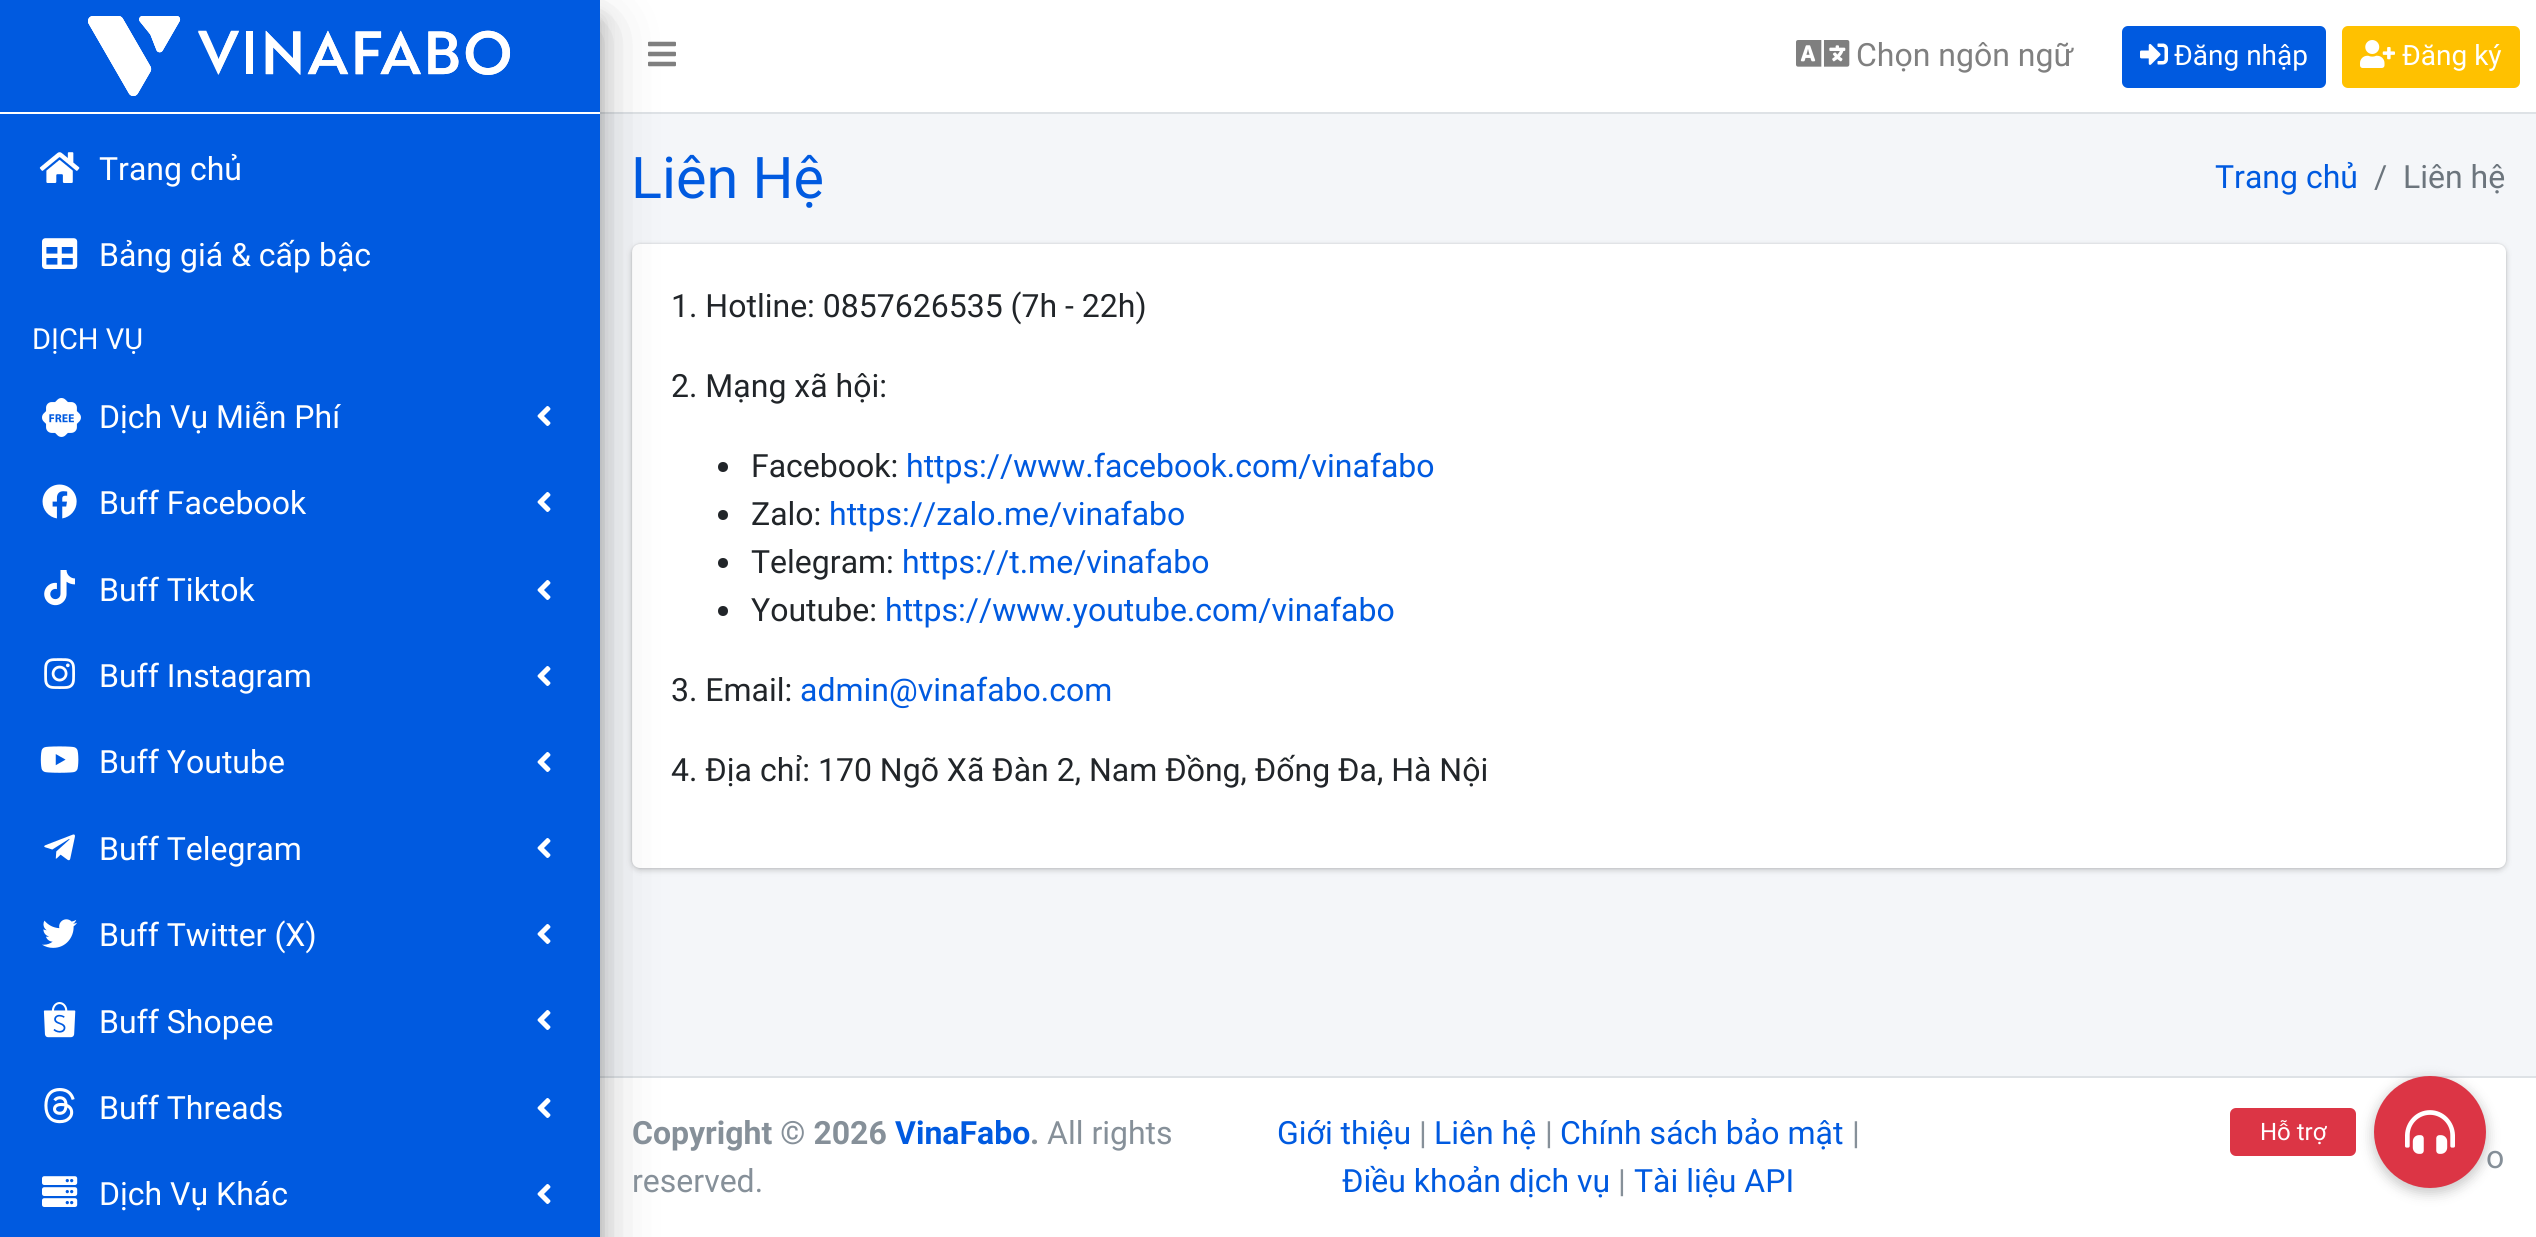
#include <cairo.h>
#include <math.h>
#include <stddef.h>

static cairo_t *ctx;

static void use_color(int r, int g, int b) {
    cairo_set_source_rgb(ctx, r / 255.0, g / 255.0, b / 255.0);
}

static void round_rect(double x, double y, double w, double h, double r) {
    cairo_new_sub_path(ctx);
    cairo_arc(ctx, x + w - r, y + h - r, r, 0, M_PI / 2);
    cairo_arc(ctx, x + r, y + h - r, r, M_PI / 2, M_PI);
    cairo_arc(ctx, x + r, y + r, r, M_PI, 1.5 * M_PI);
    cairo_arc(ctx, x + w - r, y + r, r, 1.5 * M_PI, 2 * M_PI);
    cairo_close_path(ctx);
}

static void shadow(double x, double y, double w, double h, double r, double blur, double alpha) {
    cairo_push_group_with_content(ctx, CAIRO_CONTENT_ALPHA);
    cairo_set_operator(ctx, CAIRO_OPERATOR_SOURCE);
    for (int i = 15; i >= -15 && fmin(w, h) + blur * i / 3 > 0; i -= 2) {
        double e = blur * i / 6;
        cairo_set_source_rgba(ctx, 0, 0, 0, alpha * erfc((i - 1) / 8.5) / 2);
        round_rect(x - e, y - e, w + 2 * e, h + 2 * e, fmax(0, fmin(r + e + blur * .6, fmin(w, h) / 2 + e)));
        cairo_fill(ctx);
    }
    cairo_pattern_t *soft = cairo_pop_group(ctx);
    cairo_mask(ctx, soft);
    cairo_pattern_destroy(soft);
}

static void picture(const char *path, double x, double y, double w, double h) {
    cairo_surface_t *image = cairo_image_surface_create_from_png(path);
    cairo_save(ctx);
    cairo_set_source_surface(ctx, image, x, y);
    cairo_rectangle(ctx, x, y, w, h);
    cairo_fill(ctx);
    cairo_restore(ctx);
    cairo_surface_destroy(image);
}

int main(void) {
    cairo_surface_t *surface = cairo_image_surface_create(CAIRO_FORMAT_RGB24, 2536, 1237);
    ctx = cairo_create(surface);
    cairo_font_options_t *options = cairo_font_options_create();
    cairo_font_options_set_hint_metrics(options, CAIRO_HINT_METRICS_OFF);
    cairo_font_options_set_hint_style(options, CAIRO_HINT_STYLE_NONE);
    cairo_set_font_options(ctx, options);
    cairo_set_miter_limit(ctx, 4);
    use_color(255, 255, 255);
    cairo_paint(ctx);
    use_color(222, 226, 230);
    cairo_rectangle(ctx, 600, 112, 1936, 2);
    cairo_fill(ctx);
    picture("img1.png", 648, 41, 28, 26);
    picture("img2.png", 1796, 40, 54, 27);
    cairo_select_font_face(ctx, "Roboto", CAIRO_FONT_SLANT_NORMAL, CAIRO_FONT_WEIGHT_NORMAL);
    cairo_set_font_size(ctx, 32);
    use_color(128, 128, 128);
    cairo_move_to(ctx, 1856, 66);
    cairo_show_text(ctx, "Chọn ngôn ngữ");
    use_color(0, 90, 224);
    round_rect(2123, 27, 202, 60, 5);
    cairo_fill_preserve(ctx);
    cairo_stroke(ctx);
    picture("img3.png", 2140, 43, 28, 22);
    cairo_set_font_size(ctx, 28);
    use_color(255, 255, 255);
    cairo_move_to(ctx, 2174, 65);
    cairo_show_text(ctx, "Đăng nhập");
    use_color(255, 193, 0);
    round_rect(2343, 27, 176, 60, 5);
    cairo_fill_preserve(ctx);
    cairo_stroke(ctx);
    picture("img4.png", 2360, 40, 35, 28);
    use_color(255, 255, 255);
    cairo_move_to(ctx, 2402, 65);
    cairo_show_text(ctx, "Đăng ký");
    use_color(244, 246, 249);
    cairo_rectangle(ctx, 600, 114, 1936, 962);
    cairo_fill(ctx);
    use_color(222, 226, 230);
    cairo_rectangle(ctx, 600, 1076, 1936, 2);
    cairo_fill(ctx);
    use_color(0, 0, 0);
    shadow(0, 20, 600, 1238, 0, 10, 0.22);
    shadow(632, 246, 1874, 624, 8, 3, 0.2);
    shadow(632, 244, 1874, 624, 8, 1, 0.12);
    use_color(255, 255, 255);
    round_rect(632, 244, 1874, 624, 8);
    cairo_fill(ctx);
    use_color(0, 0, 0);
    shadow(0, 28, 600, 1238, 0, 28, 0.25);
    use_color(0, 90, 224);
    cairo_rectangle(ctx, 0, 0, 600, 1237);
    cairo_fill(ctx);
    use_color(255, 255, 255);
    cairo_rectangle(ctx, 0, 112, 600, 2);
    cairo_fill(ctx);
    picture("img5.png", 88, 16, 423, 80);
    picture("img6.png", 39, 152, 41, 31);
    cairo_set_font_size(ctx, 32);
    cairo_move_to(ctx, 99, 180);
    cairo_show_text(ctx, "Trang chủ");
    picture("img7.png", 42, 238, 36, 31);
    cairo_move_to(ctx, 99, 266);
    cairo_show_text(ctx, "Bảng giá & cấp bậc");
    cairo_set_font_size(ctx, 29);
    cairo_move_to(ctx, 32, 349);
    cairo_show_text(ctx, "DỊCH VỤ");
    picture("img8.png", 42, 398, 39, 39);
    cairo_set_font_size(ctx, 32);
    cairo_move_to(ctx, 99, 428);
    cairo_show_text(ctx, "Dịch Vụ Miễn Phí");
    picture("img9.png", 537, 406, 14, 20);
    picture("img10.png", 42, 484, 35, 35);
    cairo_move_to(ctx, 99, 514);
    cairo_show_text(ctx, "Buff Facebook");
    picture("img9.png", 537, 492, 14, 20);
    picture("img11.png", 44, 570, 31, 36);
    cairo_move_to(ctx, 99, 601);
    cairo_show_text(ctx, "Buff Tiktok");
    picture("img9.png", 537, 580, 14, 20);
    picture("img12.png", 44, 658, 31, 31);
    cairo_move_to(ctx, 99, 687);
    cairo_show_text(ctx, "Buff Instagram");
    picture("img9.png", 537, 666, 14, 20);
    picture("img13.png", 40, 746, 39, 27);
    cairo_move_to(ctx, 99, 773);
    cairo_show_text(ctx, "Buff Youtube");
    picture("img9.png", 537, 752, 14, 20);
    picture("img14.png", 44, 834, 31, 27);
    cairo_move_to(ctx, 99, 860);
    cairo_show_text(ctx, "Buff Telegram");
    picture("img9.png", 537, 838, 14, 20);
    picture("img15.png", 42, 919, 35, 29);
    cairo_move_to(ctx, 99, 946);
    cairo_show_text(ctx, "Buff Twitter (X)");
    picture("img9.png", 537, 924, 14, 20);
    picture("img16.png", 43, 1002, 33, 36);
    cairo_move_to(ctx, 99, 1033);
    cairo_show_text(ctx, "Buff Shopee");
    picture("img9.png", 537, 1010, 14, 20);
    picture("img17.png", 44, 1088, 31, 36);
    cairo_move_to(ctx, 99, 1119);
    cairo_show_text(ctx, "Buff Threads");
    picture("img9.png", 537, 1098, 14, 20);
    picture("img18.png", 42, 1176, 36, 31);
    cairo_move_to(ctx, 99, 1205);
    cairo_show_text(ctx, "Dịch Vụ Khác");
    picture("img9.png", 537, 1184, 14, 20);
    cairo_set_font_size(ctx, 57.5);
    use_color(0, 90, 224);
    cairo_move_to(ctx, 631, 198);
    cairo_show_text(ctx, "Liên Hệ");
    cairo_set_font_size(ctx, 32);
    cairo_move_to(ctx, 2215, 188);
    cairo_show_text(ctx, "Trang chủ");
    use_color(108, 117, 125);
    cairo_move_to(ctx, 2374, 188);
    cairo_show_text(ctx, "/");
    cairo_move_to(ctx, 2403, 188);
    cairo_show_text(ctx, "Liên hệ");
    use_color(33, 37, 41);
    cairo_move_to(ctx, 671, 317);
    cairo_show_text(ctx, "1. Hotline: 0857626535 (7h - 22h)");
    cairo_move_to(ctx, 671, 397);
    cairo_show_text(ctx, "2. Mạng xã hội:");
    cairo_new_path(ctx);
    cairo_arc(ctx, 723, 467, 5, 0, 2 * M_PI);
    cairo_fill(ctx);
    cairo_move_to(ctx, 751, 477);
    cairo_show_text(ctx, "Facebook:");
    use_color(0, 90, 224);
    cairo_move_to(ctx, 906, 477);
    cairo_show_text(ctx, "https://www.facebook.com/vinafabo");
    use_color(33, 37, 41);
    cairo_new_path(ctx);
    cairo_arc(ctx, 723, 515, 5, 0, 2 * M_PI);
    cairo_fill(ctx);
    cairo_move_to(ctx, 751, 525);
    cairo_show_text(ctx, "Zalo:");
    use_color(0, 90, 224);
    cairo_move_to(ctx, 829, 525);
    cairo_show_text(ctx, "https://zalo.me/vinafabo");
    use_color(33, 37, 41);
    cairo_new_path(ctx);
    cairo_arc(ctx, 723, 563, 5, 0, 2 * M_PI);
    cairo_fill(ctx);
    cairo_move_to(ctx, 751, 573);
    cairo_show_text(ctx, "Telegram:");
    use_color(0, 90, 224);
    cairo_move_to(ctx, 902, 573);
    cairo_show_text(ctx, "https://t.me/vinafabo");
    use_color(33, 37, 41);
    cairo_new_path(ctx);
    cairo_arc(ctx, 723, 611, 5, 0, 2 * M_PI);
    cairo_fill(ctx);
    cairo_move_to(ctx, 751, 621);
    cairo_show_text(ctx, "Youtube:");
    use_color(0, 90, 224);
    cairo_move_to(ctx, 885, 621);
    cairo_show_text(ctx, "https://www.youtube.com/vinafabo");
    use_color(33, 37, 41);
    cairo_move_to(ctx, 671, 701);
    cairo_show_text(ctx, "3. Email:");
    use_color(0, 90, 224);
    cairo_move_to(ctx, 800, 701);
    cairo_show_text(ctx, "admin@vinafabo.com");
    use_color(33, 37, 41);
    cairo_move_to(ctx, 671, 781);
    cairo_show_text(ctx, "4. Địa chỉ: 170 Ngõ Xã Đàn 2, Nam Đồng, Đống Đa, Hà Nội");
    cairo_select_font_face(ctx, "Roboto", CAIRO_FONT_SLANT_NORMAL, CAIRO_FONT_WEIGHT_BOLD);
    use_color(134, 144, 153);
    cairo_move_to(ctx, 632, 1144);
    cairo_show_text(ctx, "Copyright © 2026");
    use_color(0, 90, 224);
    cairo_move_to(ctx, 895, 1144);
    cairo_show_text(ctx, "VinaFabo");
    use_color(134, 144, 153);
    cairo_move_to(ctx, 1030, 1144);
    cairo_show_text(ctx, ".");
    cairo_select_font_face(ctx, "Roboto", CAIRO_FONT_SLANT_NORMAL, CAIRO_FONT_WEIGHT_NORMAL);
    cairo_move_to(ctx, 1047, 1144);
    cairo_show_text(ctx, "All rights");
    cairo_move_to(ctx, 632, 1192);
    cairo_show_text(ctx, "reserved.");
    use_color(0, 90, 224);
    cairo_move_to(ctx, 1277, 1144);
    cairo_show_text(ctx, "Giới thiệu");
    use_color(134, 144, 153);
    cairo_move_to(ctx, 1419, 1144);
    cairo_show_text(ctx, "|");
    use_color(0, 90, 224);
    cairo_move_to(ctx, 1434, 1144);
    cairo_show_text(ctx, "Liên hệ");
    use_color(134, 144, 153);
    cairo_move_to(ctx, 1545, 1144);
    cairo_show_text(ctx, "|");
    use_color(0, 90, 224);
    cairo_move_to(ctx, 1560, 1144);
    cairo_show_text(ctx, "Chính sách bảo mật");
    use_color(134, 144, 153);
    cairo_move_to(ctx, 1852, 1144);
    cairo_show_text(ctx, "|");
    use_color(0, 90, 224);
    cairo_move_to(ctx, 1342, 1192);
    cairo_show_text(ctx, "Điều khoản dịch vụ");
    use_color(134, 144, 153);
    cairo_move_to(ctx, 1618, 1192);
    cairo_show_text(ctx, "|");
    use_color(0, 90, 224);
    cairo_move_to(ctx, 1634, 1192);
    cairo_show_text(ctx, "Tài liệu API");
    use_color(134, 144, 153);
    cairo_move_to(ctx, 2486, 1168);
    cairo_show_text(ctx, "o");
    use_color(0, 0, 0);
    shadow(2372, 1078, 116, 116, 58, 6, 0.2);
    use_color(220, 53, 69);
    cairo_arc(ctx, 2430, 1132, 56, 0, 2 * M_PI);
    cairo_fill(ctx);
    round_rect(2230, 1108, 126, 48, 6);
    cairo_fill(ctx);
    cairo_set_font_size(ctx, 24);
    use_color(255, 255, 255);
    cairo_move_to(ctx, 2260, 1140);
    cairo_show_text(ctx, "Hỗ trợ");
    picture("img19.png", 2405, 1110, 50, 44);
    cairo_surface_write_to_png(surface, "result.png");
    cairo_font_options_destroy(options);
    cairo_destroy(ctx);
    cairo_surface_destroy(surface);
    return 0;
}
